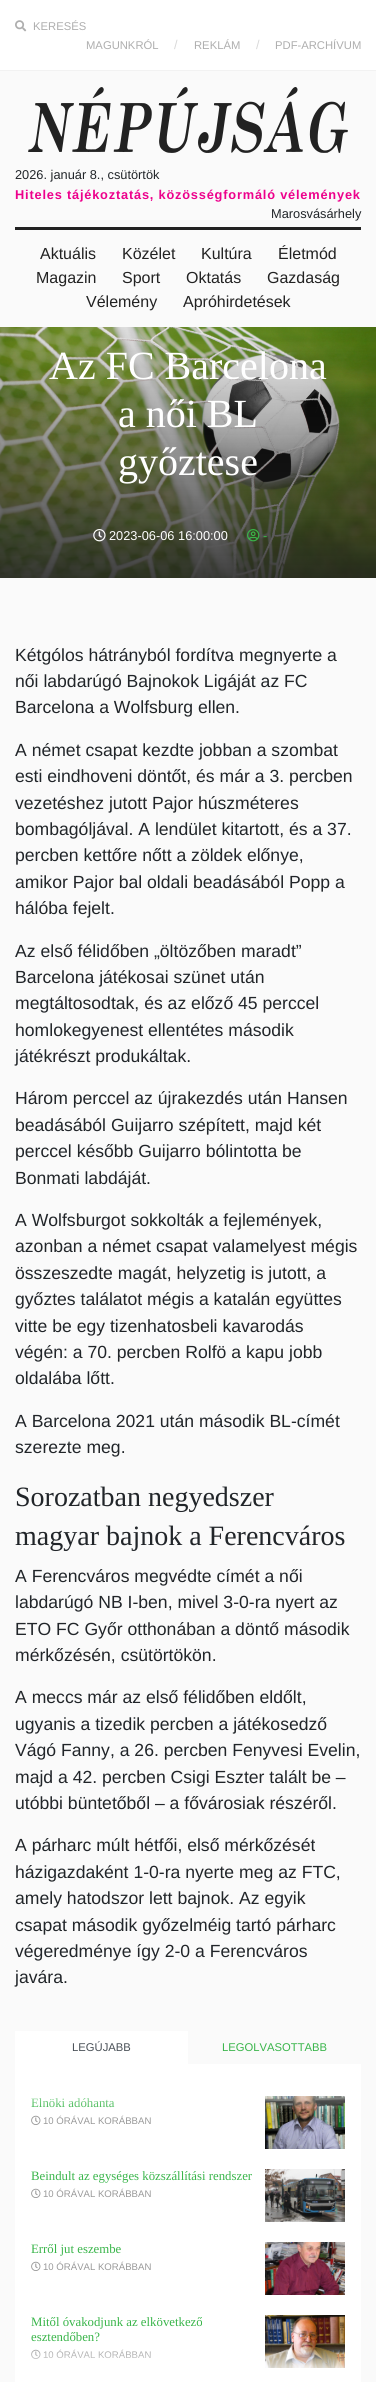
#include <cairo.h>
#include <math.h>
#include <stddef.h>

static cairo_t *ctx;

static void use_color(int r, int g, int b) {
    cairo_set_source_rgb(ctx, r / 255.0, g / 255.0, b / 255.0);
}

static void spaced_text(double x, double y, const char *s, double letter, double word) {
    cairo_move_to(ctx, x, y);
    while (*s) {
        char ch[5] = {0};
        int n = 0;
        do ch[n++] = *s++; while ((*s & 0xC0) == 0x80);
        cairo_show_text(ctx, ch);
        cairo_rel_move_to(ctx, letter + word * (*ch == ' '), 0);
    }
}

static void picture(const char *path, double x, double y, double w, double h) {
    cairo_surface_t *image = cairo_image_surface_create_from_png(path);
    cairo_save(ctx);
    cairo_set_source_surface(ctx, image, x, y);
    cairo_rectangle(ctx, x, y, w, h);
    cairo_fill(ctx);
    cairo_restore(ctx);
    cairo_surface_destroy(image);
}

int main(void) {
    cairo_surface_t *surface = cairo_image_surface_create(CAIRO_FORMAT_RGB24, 376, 2382);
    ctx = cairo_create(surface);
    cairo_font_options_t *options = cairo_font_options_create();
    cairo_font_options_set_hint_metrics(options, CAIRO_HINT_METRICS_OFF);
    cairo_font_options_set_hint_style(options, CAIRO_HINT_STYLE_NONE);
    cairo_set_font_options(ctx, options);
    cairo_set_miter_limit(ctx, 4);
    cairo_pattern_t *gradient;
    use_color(250, 250, 250);
    cairo_paint(ctx);
    use_color(255, 255, 255);
    cairo_rectangle(ctx, 0, 0, 376, 70);
    cairo_fill(ctx);
    use_color(242, 242, 242);
    cairo_rectangle(ctx, 0, 70, 376, 1);
    cairo_fill(ctx);
    picture("img1.png", 15, 20, 12, 12);
    cairo_select_font_face(ctx, "Liberation Sans", CAIRO_FONT_SLANT_NORMAL, CAIRO_FONT_WEIGHT_NORMAL);
    cairo_set_font_size(ctx, 11.25);
    use_color(174, 174, 174);
    cairo_move_to(ctx, 33, 30);
    cairo_show_text(ctx, "KERESÉS");
    cairo_move_to(ctx, 86, 49);
    cairo_show_text(ctx, "MAGUNKRÓL");
    cairo_set_font_size(ctx, 12.8);
    use_color(217, 217, 217);
    cairo_move_to(ctx, 174, 49);
    cairo_show_text(ctx, "/");
    cairo_set_font_size(ctx, 11.25);
    use_color(174, 174, 174);
    cairo_move_to(ctx, 194, 49);
    cairo_show_text(ctx, "REKLÁM");
    cairo_set_font_size(ctx, 12.8);
    use_color(217, 217, 217);
    cairo_move_to(ctx, 256, 49);
    cairo_show_text(ctx, "/");
    cairo_set_font_size(ctx, 11.25);
    use_color(174, 174, 174);
    cairo_move_to(ctx, 275, 49);
    cairo_show_text(ctx, "PDF-ARCHÍVUM");
    picture("img2.png", 28, 87, 320, 66);
    cairo_set_font_size(ctx, 12.8);
    use_color(33, 37, 41);
    cairo_move_to(ctx, 15, 179);
    cairo_show_text(ctx, "2026. január 8., csütörtök");
    cairo_select_font_face(ctx, "Liberation Sans", CAIRO_FONT_SLANT_NORMAL, CAIRO_FONT_WEIGHT_BOLD);
    use_color(237, 0, 140);
    spaced_text(15, 199, "Hiteles tájékoztatás, közösségformáló vélemények", 0.8, 0);
    cairo_select_font_face(ctx, "Liberation Sans", CAIRO_FONT_SLANT_NORMAL, CAIRO_FONT_WEIGHT_NORMAL);
    use_color(33, 37, 41);
    cairo_move_to(ctx, 271, 218);
    cairo_show_text(ctx, "Marosvásárhely");
    use_color(34, 34, 34);
    cairo_rectangle(ctx, 15, 227, 346, 3);
    cairo_fill(ctx);
    cairo_set_font_size(ctx, 16);
    cairo_move_to(ctx, 40, 259);
    cairo_show_text(ctx, "Aktuális");
    cairo_move_to(ctx, 122, 259);
    cairo_show_text(ctx, "Közélet");
    cairo_move_to(ctx, 201, 259);
    cairo_show_text(ctx, "Kultúra");
    cairo_move_to(ctx, 278, 259);
    cairo_show_text(ctx, "Életmód");
    cairo_move_to(ctx, 36, 283);
    cairo_show_text(ctx, "Magazin");
    cairo_move_to(ctx, 122, 283);
    cairo_show_text(ctx, "Sport");
    cairo_move_to(ctx, 186, 283);
    cairo_show_text(ctx, "Oktatás");
    cairo_move_to(ctx, 267, 283);
    cairo_show_text(ctx, "Gazdaság");
    cairo_move_to(ctx, 86, 307);
    cairo_show_text(ctx, "Vélemény");
    cairo_move_to(ctx, 183, 307);
    cairo_show_text(ctx, "Apróhirdetések");
    picture("img3.png", 0, 327, 376, 251);
    cairo_select_font_face(ctx, "Liberation Serif", CAIRO_FONT_SLANT_NORMAL, CAIRO_FONT_WEIGHT_NORMAL);
    cairo_set_font_size(ctx, 40);
    use_color(255, 255, 255);
    cairo_move_to(ctx, 49, 379);
    cairo_show_text(ctx, "Az FC Barcelona");
    cairo_move_to(ctx, 118, 427);
    cairo_show_text(ctx, "a női BL");
    cairo_move_to(ctx, 118, 475);
    cairo_show_text(ctx, "győztese");
    picture("img4.png", 93, 529, 13, 13);
    cairo_select_font_face(ctx, "Liberation Sans", CAIRO_FONT_SLANT_NORMAL, CAIRO_FONT_WEIGHT_NORMAL);
    cairo_set_font_size(ctx, 12.8);
    cairo_move_to(ctx, 109, 540);
    cairo_show_text(ctx, "2023-06-06 16:00:00");
    picture("img5.png", 247, 529, 13, 13);
    use_color(57, 181, 74);
    cairo_move_to(ctx, 263, 540);
    cairo_show_text(ctx, "-");
    cairo_set_font_size(ctx, 17.6);
    use_color(33, 37, 41);
    cairo_move_to(ctx, 15, 661);
    cairo_show_text(ctx, "Kétgólos hátrányból fordítva megnyerte a");
    cairo_move_to(ctx, 15, 687);
    cairo_show_text(ctx, "női labdarúgó Bajnokok Ligáját az FC");
    cairo_move_to(ctx, 15, 713);
    cairo_show_text(ctx, "Barcelona a Wolfsburg ellen.");
    cairo_move_to(ctx, 15, 756);
    cairo_show_text(ctx, "A német csapat kezdte jobban a szombat");
    cairo_move_to(ctx, 15, 782);
    cairo_show_text(ctx, "esti eindhoveni döntőt, és már a 3. percben");
    cairo_move_to(ctx, 15, 809);
    cairo_show_text(ctx, "vezetéshez jutott Pajor húszméteres");
    cairo_move_to(ctx, 15, 835);
    cairo_show_text(ctx, "bombagóljával. A lendület kitartott, és a 37.");
    cairo_move_to(ctx, 15, 861);
    cairo_show_text(ctx, "percben kettőre nőtt a zöldek előnye,");
    cairo_move_to(ctx, 15, 888);
    cairo_show_text(ctx, "amikor Pajor bal oldali beadásából Popp a");
    cairo_move_to(ctx, 15, 914);
    cairo_show_text(ctx, "hálóba fejelt.");
    cairo_move_to(ctx, 15, 957);
    cairo_show_text(ctx, "Az első félidőben „öltözőben maradt”");
    cairo_move_to(ctx, 15, 983);
    cairo_show_text(ctx, "Barcelona játékosai szünet után");
    cairo_move_to(ctx, 15, 1009);
    cairo_show_text(ctx, "megtáltosodtak, és az előző 45 perccel");
    cairo_move_to(ctx, 15, 1036);
    cairo_show_text(ctx, "homlokegyenest ellentétes második");
    cairo_move_to(ctx, 15, 1062);
    cairo_show_text(ctx, "játékrészt produkáltak.");
    cairo_move_to(ctx, 15, 1104);
    cairo_show_text(ctx, "Három perccel az újrakezdés után Hansen");
    cairo_move_to(ctx, 15, 1131);
    cairo_show_text(ctx, "beadásából Guijarro szépített, majd két");
    cairo_move_to(ctx, 15, 1157);
    cairo_show_text(ctx, "perccel később Guijarro bólintotta be");
    cairo_move_to(ctx, 15, 1184);
    cairo_show_text(ctx, "Bonmati labdáját.");
    cairo_move_to(ctx, 15, 1226);
    cairo_show_text(ctx, "A Wolfsburgot sokkolták a fejlemények,");
    cairo_move_to(ctx, 15, 1252);
    cairo_show_text(ctx, "azonban a német csapat valamelyest mégis");
    cairo_move_to(ctx, 15, 1279);
    cairo_show_text(ctx, "összeszedte magát, helyzetig is jutott, a");
    cairo_move_to(ctx, 15, 1305);
    cairo_show_text(ctx, "győztes találatot mégis a katalán együttes");
    cairo_move_to(ctx, 15, 1332);
    cairo_show_text(ctx, "vitte be egy tizenhatosbeli kavarodás");
    cairo_move_to(ctx, 15, 1358);
    cairo_show_text(ctx, "végén: a 70. percben Rolfö a kapu jobb");
    cairo_move_to(ctx, 15, 1384);
    cairo_show_text(ctx, "oldalába lőtt.");
    cairo_move_to(ctx, 15, 1427);
    cairo_show_text(ctx, "A Barcelona 2021 után második BL-címét");
    cairo_move_to(ctx, 15, 1453);
    cairo_show_text(ctx, "szerezte meg.");
    cairo_select_font_face(ctx, "Liberation Serif", CAIRO_FONT_SLANT_NORMAL, CAIRO_FONT_WEIGHT_NORMAL);
    cairo_set_font_size(ctx, 28);
    cairo_move_to(ctx, 15, 1506);
    cairo_show_text(ctx, "Sorozatban negyedszer");
    cairo_move_to(ctx, 15, 1545);
    cairo_show_text(ctx, "magyar bajnok a Ferencváros");
    cairo_select_font_face(ctx, "Liberation Sans", CAIRO_FONT_SLANT_NORMAL, CAIRO_FONT_WEIGHT_NORMAL);
    cairo_set_font_size(ctx, 17.6);
    cairo_move_to(ctx, 15, 1582);
    cairo_show_text(ctx, "A Ferencváros megvédte címét a női");
    cairo_move_to(ctx, 15, 1608);
    cairo_show_text(ctx, "labdarúgó NB I-ben, mivel 3-0-ra nyert az");
    cairo_move_to(ctx, 15, 1635);
    cairo_show_text(ctx, "ETO FC Győr otthonában a döntő második");
    cairo_move_to(ctx, 15, 1661);
    cairo_show_text(ctx, "mérkőzésén, csütörtökön.");
    cairo_move_to(ctx, 15, 1703);
    cairo_show_text(ctx, "A meccs már az első félidőben eldőlt,");
    cairo_move_to(ctx, 15, 1730);
    cairo_show_text(ctx, "ugyanis a tizedik percben a játékosedző");
    cairo_move_to(ctx, 15, 1756);
    cairo_show_text(ctx, "Vágó Fanny, a 26. percben Fenyvesi Evelin,");
    cairo_move_to(ctx, 15, 1783);
    cairo_show_text(ctx, "majd a 42. percben Csigi Eszter talált be –");
    cairo_move_to(ctx, 15, 1809);
    cairo_show_text(ctx, "utóbbi büntetőből – a fővárosiak részéről.");
    cairo_move_to(ctx, 15, 1851);
    cairo_show_text(ctx, "A párharc múlt hétfői, első mérkőzését");
    cairo_move_to(ctx, 15, 1878);
    cairo_show_text(ctx, "házigazdaként 1-0-ra nyerte meg az FTC,");
    cairo_move_to(ctx, 15, 1904);
    cairo_show_text(ctx, "amely hatodszor lett bajnok. Az egyik");
    cairo_move_to(ctx, 15, 1931);
    cairo_show_text(ctx, "csapat második győzelméig tartó párharc");
    cairo_move_to(ctx, 15, 1957);
    cairo_show_text(ctx, "végeredménye így 2-0 a Ferencváros");
    cairo_move_to(ctx, 15, 1983);
    cairo_show_text(ctx, "javára.");
    use_color(255, 255, 255);
    cairo_rectangle(ctx, 15, 2031, 173, 33);
    cairo_fill(ctx);
    cairo_set_font_size(ctx, 11.25);
    use_color(73, 80, 87);
    cairo_move_to(ctx, 72, 2051);
    cairo_show_text(ctx, "LEGÚJABB");
    use_color(57, 181, 74);
    cairo_move_to(ctx, 222, 2051);
    cairo_show_text(ctx, "LEGOLVASOTTABB");
    use_color(255, 255, 255);
    cairo_rectangle(ctx, 15, 2064, 346, 318);
    cairo_fill(ctx);
    cairo_select_font_face(ctx, "Liberation Serif", CAIRO_FONT_SLANT_NORMAL, CAIRO_FONT_WEIGHT_NORMAL);
    cairo_set_font_size(ctx, 12.8);
    use_color(57, 181, 74);
    cairo_move_to(ctx, 31, 2107);
    cairo_show_text(ctx, "Elnöki adóhanta");
    picture("img7.png", 265, 2096, 80, 53);
    gradient = cairo_pattern_create_linear(188, 2080, 188, 2110);
    cairo_pattern_add_color_stop_rgba(gradient, 0, 1, 1, 1, 1);
    cairo_pattern_add_color_stop_rgba(gradient, 1, 1, 1, 1, 0);
    cairo_set_source(ctx, gradient);
    cairo_pattern_destroy(gradient);
    cairo_rectangle(ctx, 31, 2096, 314, 13);
    cairo_fill(ctx);
    picture("img6.png", 31, 2115, 10, 10);
    cairo_select_font_face(ctx, "Liberation Sans", CAIRO_FONT_SLANT_NORMAL, CAIRO_FONT_WEIGHT_NORMAL);
    cairo_set_font_size(ctx, 9.6);
    use_color(153, 153, 153);
    cairo_move_to(ctx, 43, 2124);
    cairo_show_text(ctx, "10 ÓRÁVAL KORÁBBAN");
    cairo_select_font_face(ctx, "Liberation Serif", CAIRO_FONT_SLANT_NORMAL, CAIRO_FONT_WEIGHT_NORMAL);
    cairo_set_font_size(ctx, 12.8);
    use_color(57, 181, 74);
    cairo_move_to(ctx, 31, 2180);
    cairo_show_text(ctx, "Beindult az egységes közszállítási rendszer");
    picture("img6.png", 31, 2188, 10, 10);
    cairo_select_font_face(ctx, "Liberation Sans", CAIRO_FONT_SLANT_NORMAL, CAIRO_FONT_WEIGHT_NORMAL);
    cairo_set_font_size(ctx, 9.6);
    use_color(153, 153, 153);
    cairo_move_to(ctx, 43, 2197);
    cairo_show_text(ctx, "10 ÓRÁVAL KORÁBBAN");
    picture("img8.png", 265, 2169, 80, 53);
    cairo_select_font_face(ctx, "Liberation Serif", CAIRO_FONT_SLANT_NORMAL, CAIRO_FONT_WEIGHT_NORMAL);
    cairo_set_font_size(ctx, 12.8);
    use_color(57, 181, 74);
    cairo_move_to(ctx, 31, 2253);
    cairo_show_text(ctx, "Erről jut eszembe");
    picture("img6.png", 31, 2261, 10, 10);
    cairo_select_font_face(ctx, "Liberation Sans", CAIRO_FONT_SLANT_NORMAL, CAIRO_FONT_WEIGHT_NORMAL);
    cairo_set_font_size(ctx, 9.6);
    use_color(153, 153, 153);
    cairo_move_to(ctx, 43, 2270);
    cairo_show_text(ctx, "10 ÓRÁVAL KORÁBBAN");
    picture("img9.png", 265, 2242, 80, 53);
    cairo_select_font_face(ctx, "Liberation Serif", CAIRO_FONT_SLANT_NORMAL, CAIRO_FONT_WEIGHT_NORMAL);
    cairo_set_font_size(ctx, 12.8);
    use_color(57, 181, 74);
    cairo_move_to(ctx, 31, 2326);
    cairo_show_text(ctx, "Mitől óvakodjunk az elkövetkező");
    cairo_move_to(ctx, 31, 2341);
    cairo_show_text(ctx, "esztendőben?");
    picture("img6.png", 31, 2349, 10, 10);
    cairo_select_font_face(ctx, "Liberation Sans", CAIRO_FONT_SLANT_NORMAL, CAIRO_FONT_WEIGHT_NORMAL);
    cairo_set_font_size(ctx, 9.6);
    use_color(153, 153, 153);
    cairo_move_to(ctx, 43, 2358);
    cairo_show_text(ctx, "10 ÓRÁVAL KORÁBBAN");
    picture("img10.png", 265, 2315, 80, 53);
    gradient = cairo_pattern_create_linear(188, 2346, 188, 2376);
    cairo_pattern_add_color_stop_rgba(gradient, 0, 1, 1, 1, 0);
    cairo_pattern_add_color_stop_rgba(gradient, 1, 1, 1, 1, 1);
    cairo_set_source(ctx, gradient);
    cairo_pattern_destroy(gradient);
    cairo_rectangle(ctx, 31, 2347, 314, 21);
    cairo_fill(ctx);
    cairo_surface_write_to_png(surface, "result.png");
    cairo_font_options_destroy(options);
    cairo_destroy(ctx);
    cairo_surface_destroy(surface);
    return 0;
}
